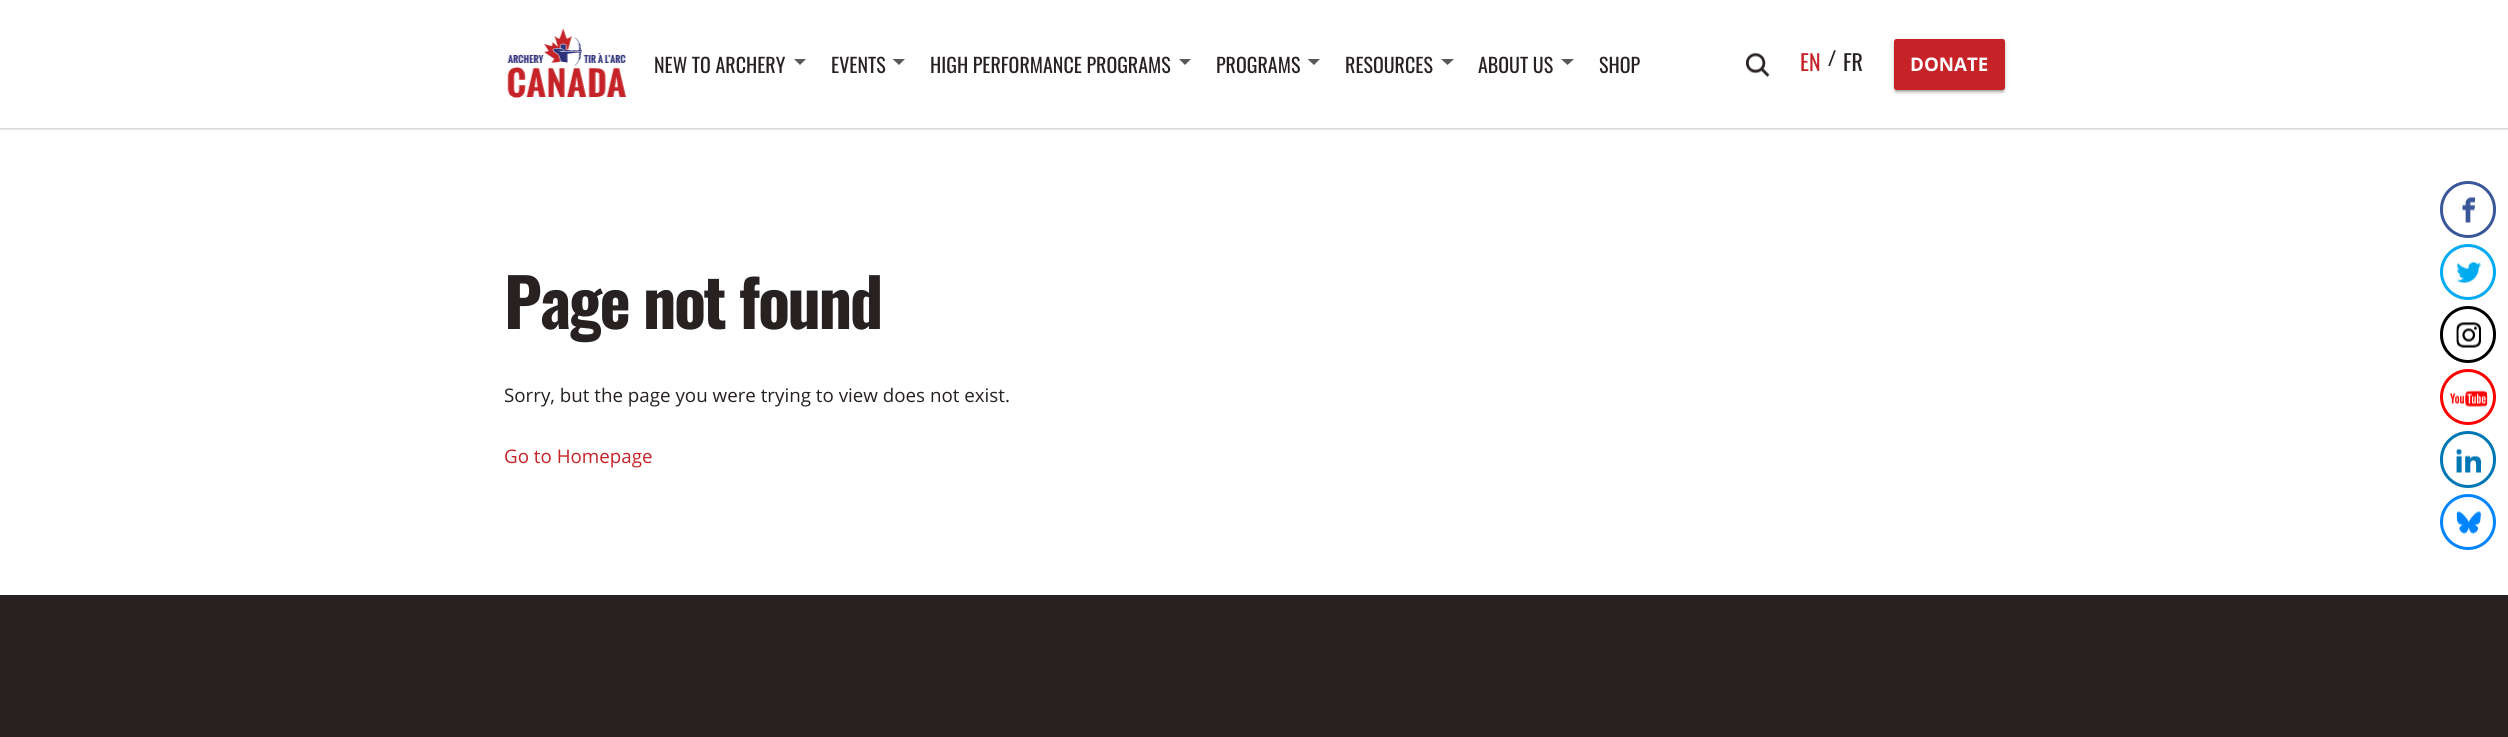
#include <cairo.h>
#include <math.h>
#include <stddef.h>

static cairo_t *ctx;

static void use_color(int r, int g, int b) {
    cairo_set_source_rgb(ctx, r / 255.0, g / 255.0, b / 255.0);
}

static void spaced_text(double x, double y, const char *s, double letter, double word) {
    cairo_move_to(ctx, x, y);
    while (*s) {
        char ch[5] = {0};
        int n = 0;
        do ch[n++] = *s++; while ((*s & 0xC0) == 0x80);
        cairo_show_text(ctx, ch);
        cairo_rel_move_to(ctx, letter + word * (*ch == ' '), 0);
    }
}

static void round_rect(double x, double y, double w, double h, double r) {
    cairo_new_sub_path(ctx);
    cairo_arc(ctx, x + w - r, y + h - r, r, 0, M_PI / 2);
    cairo_arc(ctx, x + r, y + h - r, r, M_PI / 2, M_PI);
    cairo_arc(ctx, x + r, y + r, r, M_PI, 1.5 * M_PI);
    cairo_arc(ctx, x + w - r, y + r, r, 1.5 * M_PI, 2 * M_PI);
    cairo_close_path(ctx);
}

static void shadow(double x, double y, double w, double h, double r, double blur, double alpha) {
    cairo_push_group_with_content(ctx, CAIRO_CONTENT_ALPHA);
    cairo_set_operator(ctx, CAIRO_OPERATOR_SOURCE);
    for (int i = 15; i >= -15 && fmin(w, h) + blur * i / 3 > 0; i -= 2) {
        double e = blur * i / 6;
        cairo_set_source_rgba(ctx, 0, 0, 0, alpha * erfc((i - 1) / 8.5) / 2);
        round_rect(x - e, y - e, w + 2 * e, h + 2 * e, fmax(0, fmin(r + e + blur * .6, fmin(w, h) / 2 + e)));
        cairo_fill(ctx);
    }
    cairo_pattern_t *soft = cairo_pop_group(ctx);
    cairo_mask(ctx, soft);
    cairo_pattern_destroy(soft);
}

static void picture(const char *path, double x, double y, double w, double h) {
    cairo_surface_t *image = cairo_image_surface_create_from_png(path);
    cairo_save(ctx);
    cairo_set_source_surface(ctx, image, x, y);
    cairo_rectangle(ctx, x, y, w, h);
    cairo_fill(ctx);
    cairo_restore(ctx);
    cairo_surface_destroy(image);
}

int main(void) {
    cairo_surface_t *surface = cairo_image_surface_create(CAIRO_FORMAT_RGB24, 2508, 737);
    ctx = cairo_create(surface);
    cairo_font_options_t *options = cairo_font_options_create();
    cairo_font_options_set_hint_metrics(options, CAIRO_HINT_METRICS_OFF);
    cairo_font_options_set_hint_style(options, CAIRO_HINT_STYLE_NONE);
    cairo_set_font_options(ctx, options);
    cairo_set_miter_limit(ctx, 4);
    use_color(255, 255, 255);
    cairo_paint(ctx);
    use_color(0, 0, 0);
    shadow(0, 1, 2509, 128, 0, 1, 0.22);
    use_color(255, 255, 255);
    cairo_rectangle(ctx, 0, 0, 2508, 128);
    cairo_fill(ctx);
    picture("img1.png", 507, 28, 119, 70);
    cairo_select_font_face(ctx, "Oswald", CAIRO_FONT_SLANT_NORMAL, CAIRO_FONT_WEIGHT_NORMAL);
    cairo_set_font_size(ctx, 20);
    use_color(39, 34, 33);
    cairo_move_to(ctx, 654, 73);
    cairo_show_text(ctx, "NEW TO ARCHERY");
    use_color(89, 89, 89);
    cairo_new_path(ctx);
    cairo_move_to(ctx, 794, 59);
    cairo_line_to(ctx, 806, 59);
    cairo_line_to(ctx, 800, 65);
    cairo_close_path(ctx);
    cairo_fill(ctx);
    use_color(39, 34, 33);
    cairo_move_to(ctx, 831, 73);
    cairo_show_text(ctx, "EVENTS");
    use_color(89, 89, 89);
    cairo_new_path(ctx);
    cairo_move_to(ctx, 892.5, 59);
    cairo_line_to(ctx, 905, 59);
    cairo_line_to(ctx, 899, 65);
    cairo_close_path(ctx);
    cairo_fill(ctx);
    use_color(39, 34, 33);
    cairo_move_to(ctx, 930, 73);
    cairo_show_text(ctx, "HIGH PERFORMANCE PROGRAMS");
    use_color(89, 89, 89);
    cairo_new_path(ctx);
    cairo_move_to(ctx, 1179, 59);
    cairo_line_to(ctx, 1191, 59);
    cairo_line_to(ctx, 1185, 65);
    cairo_close_path(ctx);
    cairo_fill(ctx);
    use_color(39, 34, 33);
    cairo_move_to(ctx, 1216, 73);
    cairo_show_text(ctx, "PROGRAMS");
    use_color(89, 89, 89);
    cairo_new_path(ctx);
    cairo_move_to(ctx, 1307.5, 59);
    cairo_line_to(ctx, 1320, 59);
    cairo_line_to(ctx, 1314, 65);
    cairo_close_path(ctx);
    cairo_fill(ctx);
    use_color(39, 34, 33);
    cairo_move_to(ctx, 1345, 73);
    cairo_show_text(ctx, "RESOURCES");
    use_color(89, 89, 89);
    cairo_new_path(ctx);
    cairo_move_to(ctx, 1441, 59);
    cairo_line_to(ctx, 1454, 59);
    cairo_line_to(ctx, 1447.5, 65);
    cairo_close_path(ctx);
    cairo_fill(ctx);
    use_color(39, 34, 33);
    cairo_move_to(ctx, 1478, 73);
    cairo_show_text(ctx, "ABOUT US");
    use_color(89, 89, 89);
    cairo_new_path(ctx);
    cairo_move_to(ctx, 1561, 59);
    cairo_line_to(ctx, 1574, 59);
    cairo_line_to(ctx, 1567.5, 65);
    cairo_close_path(ctx);
    cairo_fill(ctx);
    use_color(39, 34, 33);
    cairo_move_to(ctx, 1599, 73);
    cairo_show_text(ctx, "SHOP");
    picture("img2.png", 1746, 52, 24, 26);
    cairo_set_font_size(ctx, 22);
    use_color(197, 35, 40);
    cairo_move_to(ctx, 1800, 71);
    cairo_show_text(ctx, "EN");
    cairo_select_font_face(ctx, "Open Sans", CAIRO_FONT_SLANT_NORMAL, CAIRO_FONT_WEIGHT_NORMAL);
    use_color(39, 34, 33);
    cairo_move_to(ctx, 1828, 66);
    cairo_show_text(ctx, "/");
    cairo_select_font_face(ctx, "Oswald", CAIRO_FONT_SLANT_NORMAL, CAIRO_FONT_WEIGHT_NORMAL);
    cairo_move_to(ctx, 1843, 71);
    cairo_show_text(ctx, "FR");
    use_color(0, 0, 0);
    shadow(1896, 45, 107, 46, 0, 0.5, 0.2);
    shadow(1894, 40, 111, 51, 2.5, 3, 0.12);
    shadow(1894, 41, 111, 52, 2.5, 1, 0.14);
    use_color(197, 35, 40);
    round_rect(1894, 39, 111, 51, 2.5);
    cairo_fill(ctx);
    cairo_select_font_face(ctx, "Open Sans", CAIRO_FONT_SLANT_NORMAL, CAIRO_FONT_WEIGHT_BOLD);
    cairo_set_font_size(ctx, 18.75);
    use_color(255, 255, 255);
    cairo_move_to(ctx, 1910, 71);
    cairo_show_text(ctx, "DONATE");
    cairo_select_font_face(ctx, "Oswald", CAIRO_FONT_SLANT_NORMAL, CAIRO_FONT_WEIGHT_BOLD);
    cairo_set_font_size(ctx, 66.5);
    use_color(39, 34, 33);
    spaced_text(504, 329, "Page not found", -2.5, 0);
    cairo_select_font_face(ctx, "Open Sans", CAIRO_FONT_SLANT_NORMAL, CAIRO_FONT_WEIGHT_NORMAL);
    cairo_set_font_size(ctx, 18.75);
    cairo_move_to(ctx, 504, 402);
    cairo_show_text(ctx, "Sorry, but the page you were trying to view does not exist.");
    use_color(197, 35, 40);
    cairo_move_to(ctx, 504, 463);
    cairo_show_text(ctx, "Go to Homepage");
    use_color(39, 34, 33);
    cairo_rectangle(ctx, 0, 595, 2508, 142);
    cairo_fill(ctx);
    round_rect(2441.5, 182.5, 53, 54, 26.5);
    use_color(58, 87, 154);
    cairo_set_line_width(ctx, 3);
    cairo_stroke(ctx);
    picture("img3.png", 2462, 197, 13, 26);
    cairo_arc(ctx, 2468, 272, 26.5, 0, 2 * M_PI);
    use_color(0, 171, 240);
    cairo_stroke(ctx);
    picture("img4.png", 2457, 261, 24, 23);
    round_rect(2441.5, 307.5, 53, 54, 26.5);
    use_color(0, 0, 0);
    cairo_stroke(ctx);
    picture("img5.png", 2456, 322, 25, 26);
    cairo_arc(ctx, 2468, 397, 26.5, 0, 2 * M_PI);
    use_color(255, 0, 0);
    cairo_stroke(ctx);
    picture("img6.png", 2450, 390, 38, 17);
    round_rect(2441.5, 432.5, 53, 54, 26.5);
    use_color(0, 119, 181);
    cairo_stroke(ctx);
    picture("img7.png", 2456, 448, 25, 25);
    cairo_arc(ctx, 2468, 522, 26.5, 0, 2 * M_PI);
    use_color(0, 133, 255);
    cairo_stroke(ctx);
    picture("img8.png", 2456, 511, 25, 23);
    cairo_surface_write_to_png(surface, "result.png");
    cairo_font_options_destroy(options);
    cairo_destroy(ctx);
    cairo_surface_destroy(surface);
    return 0;
}
